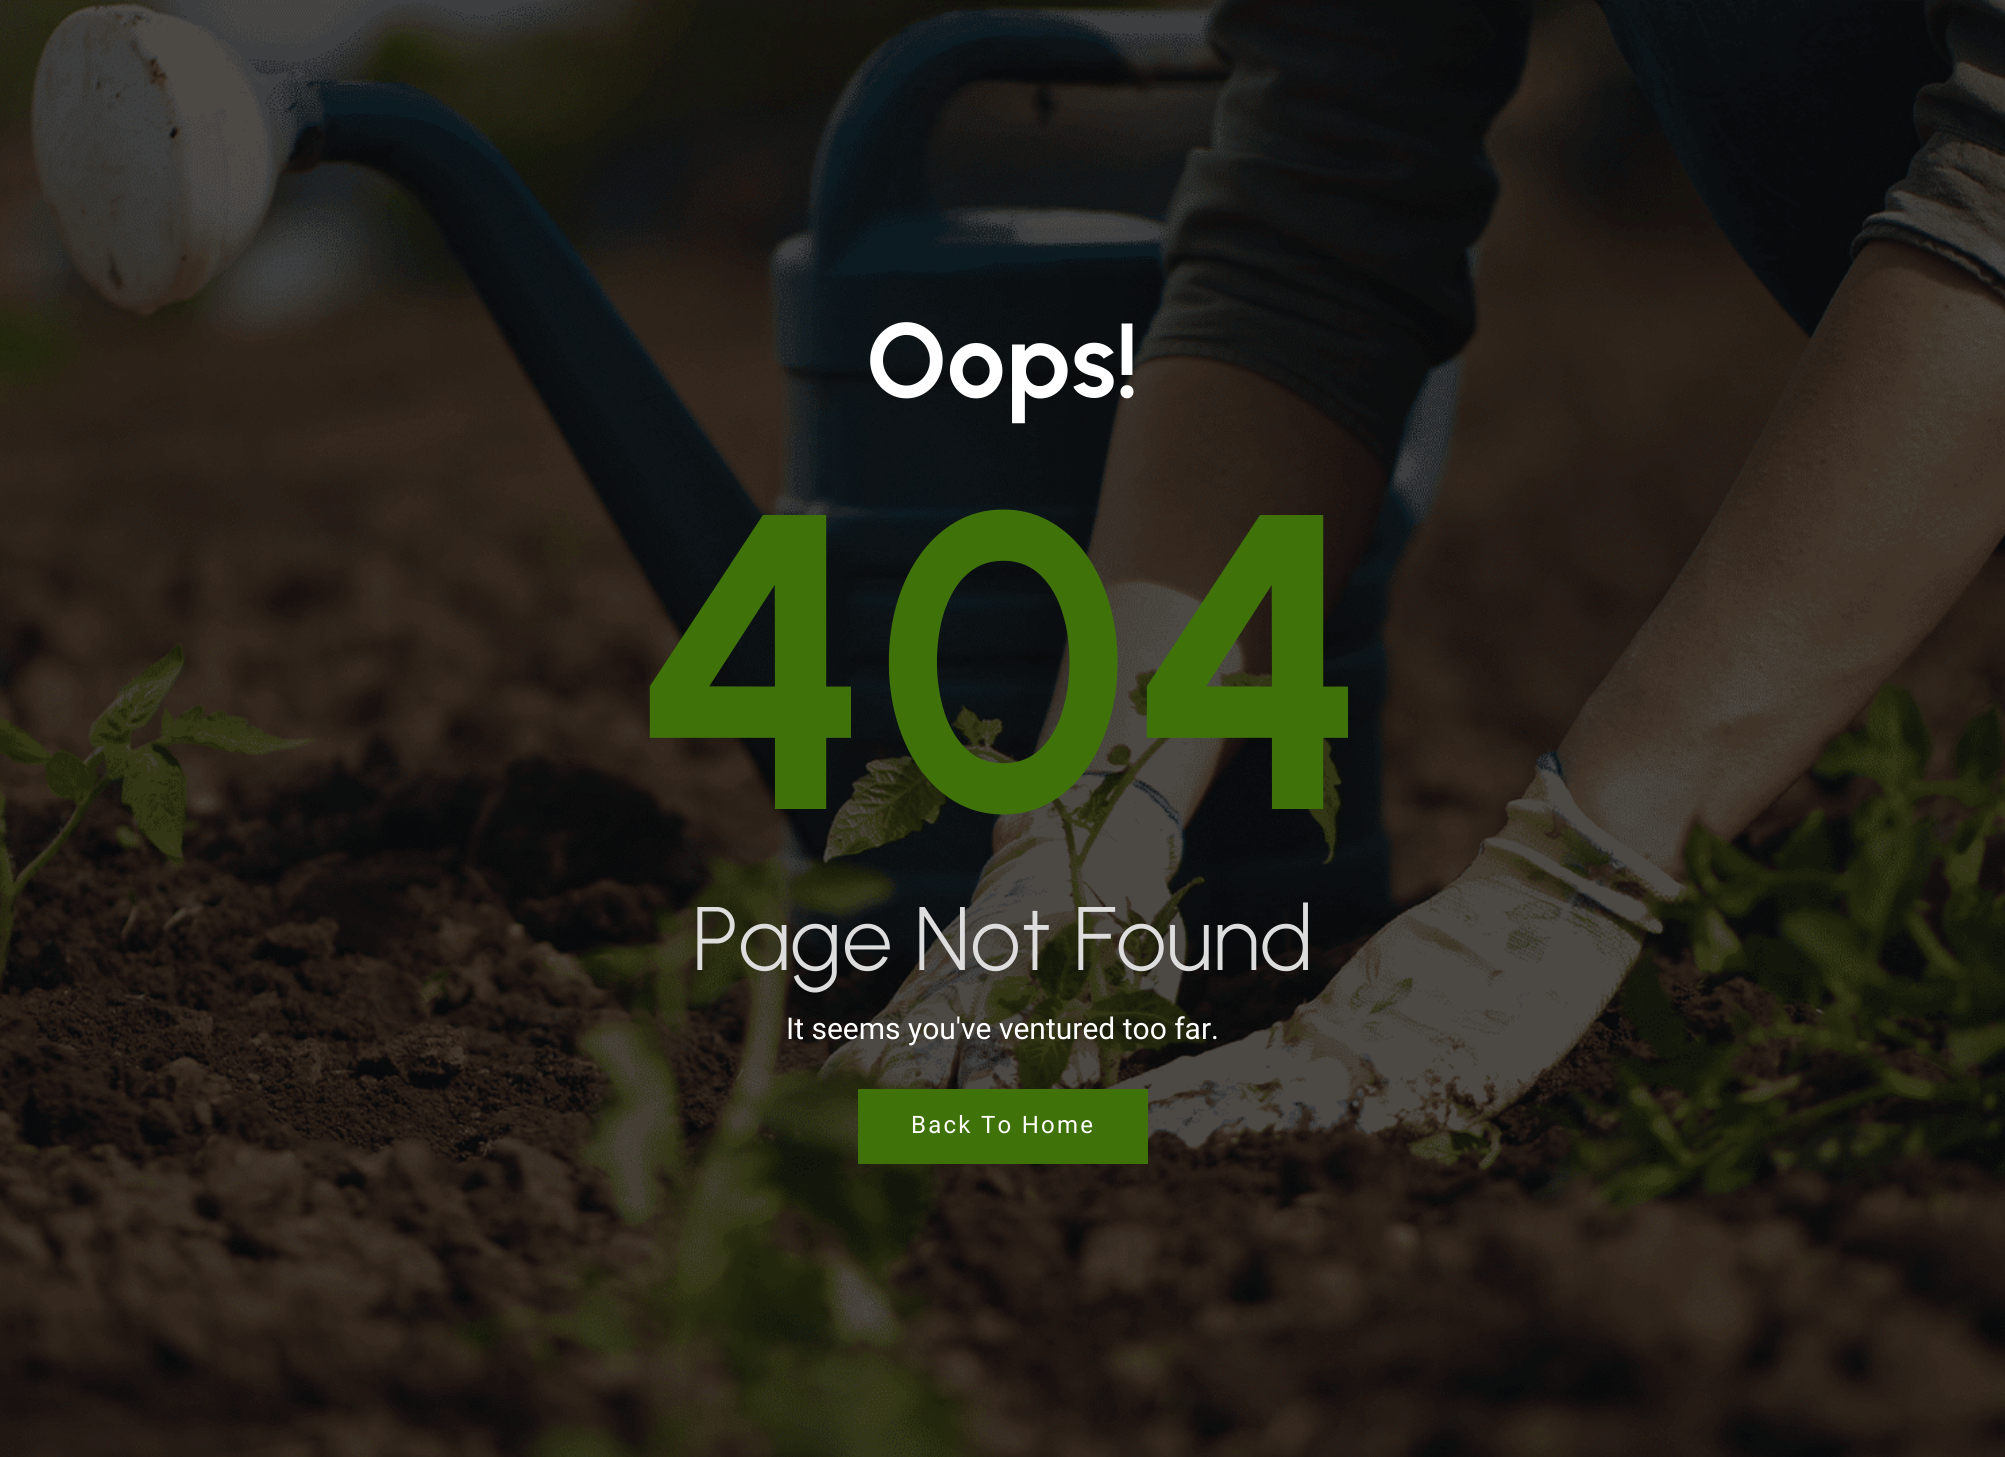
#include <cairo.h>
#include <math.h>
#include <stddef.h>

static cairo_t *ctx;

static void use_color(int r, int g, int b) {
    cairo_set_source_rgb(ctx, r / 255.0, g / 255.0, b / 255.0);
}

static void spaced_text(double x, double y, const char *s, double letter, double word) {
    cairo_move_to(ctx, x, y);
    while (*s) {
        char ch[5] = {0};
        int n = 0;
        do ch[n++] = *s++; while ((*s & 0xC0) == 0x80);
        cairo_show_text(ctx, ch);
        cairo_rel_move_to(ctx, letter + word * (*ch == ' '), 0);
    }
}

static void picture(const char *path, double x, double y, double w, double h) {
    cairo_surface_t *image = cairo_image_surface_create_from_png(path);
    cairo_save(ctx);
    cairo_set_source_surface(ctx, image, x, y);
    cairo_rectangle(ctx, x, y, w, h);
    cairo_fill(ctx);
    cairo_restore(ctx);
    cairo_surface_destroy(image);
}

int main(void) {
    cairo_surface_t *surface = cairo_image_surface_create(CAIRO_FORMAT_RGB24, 2005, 1457);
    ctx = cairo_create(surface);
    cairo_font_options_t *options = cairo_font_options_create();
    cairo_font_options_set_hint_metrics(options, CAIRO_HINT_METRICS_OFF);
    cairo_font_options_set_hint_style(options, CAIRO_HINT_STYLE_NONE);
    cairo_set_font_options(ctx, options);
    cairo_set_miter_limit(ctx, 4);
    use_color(255, 255, 255);
    cairo_paint(ctx);
    picture("img1.png", 0, 0, 2005, 1457);
    cairo_select_font_face(ctx, "Urbanist", CAIRO_FONT_SLANT_NORMAL, CAIRO_FONT_WEIGHT_BOLD);
    cairo_set_font_size(ctx, 105);
    use_color(255, 255, 255);
    cairo_move_to(ctx, 866, 397);
    cairo_show_text(ctx, "Oops!");
    cairo_set_font_size(ctx, 420);
    use_color(63, 115, 10);
    cairo_move_to(ctx, 633, 809);
    cairo_show_text(ctx, "404");
    cairo_select_font_face(ctx, "Urbanist Light", CAIRO_FONT_SLANT_NORMAL, CAIRO_FONT_WEIGHT_NORMAL);
    cairo_set_font_size(ctx, 90);
    use_color(221, 221, 221);
    cairo_move_to(ctx, 692, 970);
    cairo_show_text(ctx, "Page Not Found");
    cairo_select_font_face(ctx, "Roboto", CAIRO_FONT_SLANT_NORMAL, CAIRO_FONT_WEIGHT_NORMAL);
    cairo_set_font_size(ctx, 30);
    use_color(255, 255, 255);
    cairo_move_to(ctx, 786, 1039);
    cairo_show_text(ctx, "It seems you've ventured too far.");
    use_color(63, 115, 10);
    cairo_rectangle(ctx, 858, 1089, 290, 75);
    cairo_fill(ctx);
    cairo_set_font_size(ctx, 24);
    use_color(255, 255, 255);
    spaced_text(911, 1133, "Back To Home", 2.25, 0);
    cairo_surface_write_to_png(surface, "result.png");
    cairo_font_options_destroy(options);
    cairo_destroy(ctx);
    cairo_surface_destroy(surface);
    return 0;
}
